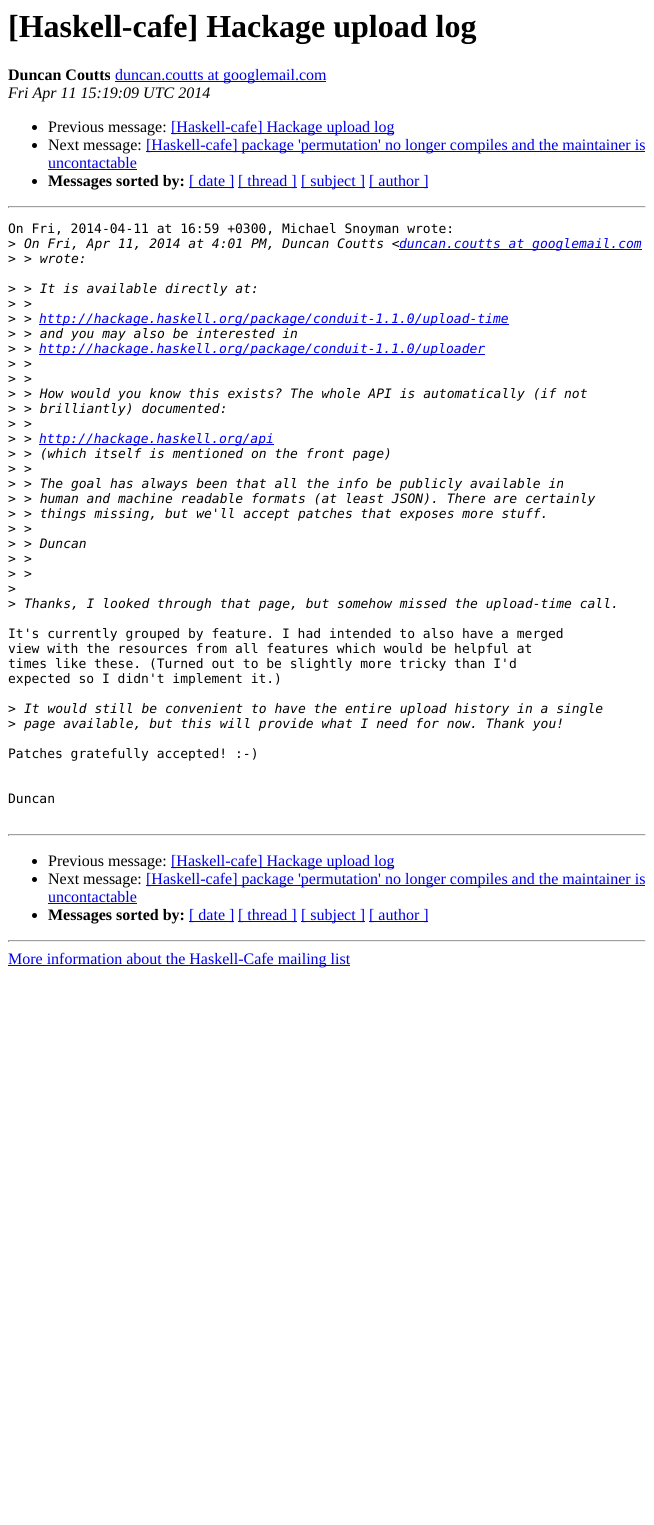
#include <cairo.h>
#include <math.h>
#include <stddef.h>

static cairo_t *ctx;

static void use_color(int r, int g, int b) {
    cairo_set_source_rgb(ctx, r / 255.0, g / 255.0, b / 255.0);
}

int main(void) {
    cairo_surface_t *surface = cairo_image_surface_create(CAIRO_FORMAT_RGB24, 654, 1525);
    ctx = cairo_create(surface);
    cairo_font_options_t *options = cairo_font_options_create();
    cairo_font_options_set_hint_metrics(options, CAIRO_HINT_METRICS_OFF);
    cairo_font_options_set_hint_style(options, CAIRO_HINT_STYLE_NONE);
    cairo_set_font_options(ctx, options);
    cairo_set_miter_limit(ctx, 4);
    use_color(255, 255, 255);
    cairo_paint(ctx);
    cairo_select_font_face(ctx, "Liberation Serif", CAIRO_FONT_SLANT_NORMAL, CAIRO_FONT_WEIGHT_BOLD);
    cairo_set_font_size(ctx, 32);
    use_color(0, 0, 0);
    cairo_move_to(ctx, 8, 37);
    cairo_show_text(ctx, "[Haskell-cafe] Hackage upload log");
    cairo_set_font_size(ctx, 16);
    cairo_move_to(ctx, 8, 80);
    cairo_show_text(ctx, "Duncan Coutts");
    use_color(0, 0, 238);
    cairo_rectangle(ctx, 115, 81, 211, 1);
    cairo_fill(ctx);
    cairo_select_font_face(ctx, "Liberation Serif", CAIRO_FONT_SLANT_NORMAL, CAIRO_FONT_WEIGHT_NORMAL);
    cairo_move_to(ctx, 115, 80);
    cairo_show_text(ctx, "duncan.coutts at googlemail.com");
    cairo_select_font_face(ctx, "Liberation Serif", CAIRO_FONT_SLANT_ITALIC, CAIRO_FONT_WEIGHT_NORMAL);
    use_color(0, 0, 0);
    cairo_move_to(ctx, 8, 98);
    cairo_show_text(ctx, "Fri Apr 11 15:19:09 UTC 2014");
    cairo_new_path(ctx);
    cairo_arc(ctx, 34.5, 127.5, 2.5, 0, 2 * M_PI);
    cairo_fill(ctx);
    cairo_select_font_face(ctx, "Liberation Serif", CAIRO_FONT_SLANT_NORMAL, CAIRO_FONT_WEIGHT_NORMAL);
    cairo_move_to(ctx, 48, 132);
    cairo_show_text(ctx, "Previous message:");
    use_color(0, 0, 238);
    cairo_rectangle(ctx, 171, 133, 223, 1);
    cairo_fill(ctx);
    cairo_move_to(ctx, 171, 132);
    cairo_show_text(ctx, "[Haskell-cafe] Hackage upload log");
    use_color(0, 0, 0);
    cairo_new_path(ctx);
    cairo_arc(ctx, 34.5, 145.5, 2.5, 0, 2 * M_PI);
    cairo_fill(ctx);
    cairo_move_to(ctx, 48, 150);
    cairo_show_text(ctx, "Next message:");
    use_color(0, 0, 238);
    cairo_rectangle(ctx, 146, 151, 499, 1);
    cairo_fill(ctx);
    cairo_move_to(ctx, 146, 150);
    cairo_show_text(ctx, "[Haskell-cafe] package 'permutation' no longer compiles and the maintainer is");
    cairo_move_to(ctx, 48, 168);
    cairo_show_text(ctx, "uncontactable");
    cairo_rectangle(ctx, 48, 169, 89, 1);
    cairo_fill(ctx);
    use_color(0, 0, 0);
    cairo_arc(ctx, 34.5, 181.5, 2.5, 0, 2 * M_PI);
    cairo_fill(ctx);
    cairo_select_font_face(ctx, "Liberation Serif", CAIRO_FONT_SLANT_NORMAL, CAIRO_FONT_WEIGHT_BOLD);
    cairo_move_to(ctx, 48, 186);
    cairo_show_text(ctx, "Messages sorted by:");
    use_color(0, 0, 238);
    cairo_rectangle(ctx, 189, 187, 45, 1);
    cairo_fill(ctx);
    cairo_select_font_face(ctx, "Liberation Serif", CAIRO_FONT_SLANT_NORMAL, CAIRO_FONT_WEIGHT_NORMAL);
    cairo_move_to(ctx, 189, 186);
    cairo_show_text(ctx, "[ date ]");
    cairo_rectangle(ctx, 238, 187, 59, 1);
    cairo_fill(ctx);
    cairo_move_to(ctx, 238, 186);
    cairo_show_text(ctx, "[ thread ]");
    cairo_rectangle(ctx, 301, 187, 64, 1);
    cairo_fill(ctx);
    cairo_move_to(ctx, 301, 186);
    cairo_show_text(ctx, "[ subject ]");
    cairo_rectangle(ctx, 369, 187, 59, 1);
    cairo_fill(ctx);
    cairo_move_to(ctx, 369, 186);
    cairo_show_text(ctx, "[ author ]");
    use_color(159, 159, 159);
    cairo_rectangle(ctx, 8, 206, 638, 1);
    cairo_fill(ctx);
    use_color(238, 238, 238);
    cairo_rectangle(ctx, 645, 206, 1, 2);
    cairo_fill(ctx);
    cairo_rectangle(ctx, 8, 207, 638, 1);
    cairo_fill(ctx);
    use_color(159, 159, 159);
    cairo_rectangle(ctx, 8, 206, 1, 2);
    cairo_fill(ctx);
    cairo_select_font_face(ctx, "DejaVu Sans Mono", CAIRO_FONT_SLANT_NORMAL, CAIRO_FONT_WEIGHT_NORMAL);
    cairo_set_font_size(ctx, 13);
    use_color(0, 0, 0);
    cairo_move_to(ctx, 8, 233);
    cairo_show_text(ctx, "On Fri, 2014-04-11 at 16:59 +0300, Michael Snoyman wrote:");
    cairo_move_to(ctx, 8, 248);
    cairo_show_text(ctx, ">");
    cairo_select_font_face(ctx, "DejaVu Sans Mono", CAIRO_FONT_SLANT_ITALIC, CAIRO_FONT_WEIGHT_NORMAL);
    cairo_move_to(ctx, 24, 248);
    cairo_show_text(ctx, "On Fri, Apr 11, 2014 at 4:01 PM, Duncan Coutts <");
    use_color(0, 0, 238);
    cairo_rectangle(ctx, 399, 249, 243, 1);
    cairo_fill(ctx);
    cairo_move_to(ctx, 399, 248);
    cairo_show_text(ctx, "duncan.coutts at googlemail.com");
    cairo_select_font_face(ctx, "DejaVu Sans Mono", CAIRO_FONT_SLANT_NORMAL, CAIRO_FONT_WEIGHT_NORMAL);
    use_color(0, 0, 0);
    cairo_move_to(ctx, 8, 263);
    cairo_show_text(ctx, ">");
    cairo_select_font_face(ctx, "DejaVu Sans Mono", CAIRO_FONT_SLANT_ITALIC, CAIRO_FONT_WEIGHT_NORMAL);
    cairo_move_to(ctx, 24, 263);
    cairo_show_text(ctx, "> wrote:");
    cairo_select_font_face(ctx, "DejaVu Sans Mono", CAIRO_FONT_SLANT_NORMAL, CAIRO_FONT_WEIGHT_NORMAL);
    cairo_move_to(ctx, 8, 293);
    cairo_show_text(ctx, ">");
    cairo_select_font_face(ctx, "DejaVu Sans Mono", CAIRO_FONT_SLANT_ITALIC, CAIRO_FONT_WEIGHT_NORMAL);
    cairo_move_to(ctx, 24, 293);
    cairo_show_text(ctx, "> It is available directly at:");
    cairo_select_font_face(ctx, "DejaVu Sans Mono", CAIRO_FONT_SLANT_NORMAL, CAIRO_FONT_WEIGHT_NORMAL);
    cairo_move_to(ctx, 8, 308);
    cairo_show_text(ctx, ">");
    cairo_select_font_face(ctx, "DejaVu Sans Mono", CAIRO_FONT_SLANT_ITALIC, CAIRO_FONT_WEIGHT_NORMAL);
    cairo_move_to(ctx, 24, 308);
    cairo_show_text(ctx, ">");
    cairo_select_font_face(ctx, "DejaVu Sans Mono", CAIRO_FONT_SLANT_NORMAL, CAIRO_FONT_WEIGHT_NORMAL);
    cairo_move_to(ctx, 8, 323);
    cairo_show_text(ctx, ">");
    cairo_select_font_face(ctx, "DejaVu Sans Mono", CAIRO_FONT_SLANT_ITALIC, CAIRO_FONT_WEIGHT_NORMAL);
    cairo_move_to(ctx, 24, 323);
    cairo_show_text(ctx, ">");
    use_color(0, 0, 238);
    cairo_rectangle(ctx, 39, 324, 470, 1);
    cairo_fill(ctx);
    cairo_move_to(ctx, 39, 323);
    cairo_show_text(ctx, "http://hackage.haskell.org/package/conduit-1.1.0/upload-time");
    cairo_select_font_face(ctx, "DejaVu Sans Mono", CAIRO_FONT_SLANT_NORMAL, CAIRO_FONT_WEIGHT_NORMAL);
    use_color(0, 0, 0);
    cairo_move_to(ctx, 8, 338);
    cairo_show_text(ctx, ">");
    cairo_select_font_face(ctx, "DejaVu Sans Mono", CAIRO_FONT_SLANT_ITALIC, CAIRO_FONT_WEIGHT_NORMAL);
    cairo_move_to(ctx, 24, 338);
    cairo_show_text(ctx, "> and you may also be interested in");
    cairo_select_font_face(ctx, "DejaVu Sans Mono", CAIRO_FONT_SLANT_NORMAL, CAIRO_FONT_WEIGHT_NORMAL);
    cairo_move_to(ctx, 8, 353);
    cairo_show_text(ctx, ">");
    cairo_select_font_face(ctx, "DejaVu Sans Mono", CAIRO_FONT_SLANT_ITALIC, CAIRO_FONT_WEIGHT_NORMAL);
    cairo_move_to(ctx, 24, 353);
    cairo_show_text(ctx, ">");
    use_color(0, 0, 238);
    cairo_rectangle(ctx, 39, 354, 446, 1);
    cairo_fill(ctx);
    cairo_move_to(ctx, 39, 353);
    cairo_show_text(ctx, "http://hackage.haskell.org/package/conduit-1.1.0/uploader");
    cairo_select_font_face(ctx, "DejaVu Sans Mono", CAIRO_FONT_SLANT_NORMAL, CAIRO_FONT_WEIGHT_NORMAL);
    use_color(0, 0, 0);
    cairo_move_to(ctx, 8, 368);
    cairo_show_text(ctx, ">");
    cairo_select_font_face(ctx, "DejaVu Sans Mono", CAIRO_FONT_SLANT_ITALIC, CAIRO_FONT_WEIGHT_NORMAL);
    cairo_move_to(ctx, 24, 368);
    cairo_show_text(ctx, ">");
    cairo_select_font_face(ctx, "DejaVu Sans Mono", CAIRO_FONT_SLANT_NORMAL, CAIRO_FONT_WEIGHT_NORMAL);
    cairo_move_to(ctx, 8, 383);
    cairo_show_text(ctx, ">");
    cairo_select_font_face(ctx, "DejaVu Sans Mono", CAIRO_FONT_SLANT_ITALIC, CAIRO_FONT_WEIGHT_NORMAL);
    cairo_move_to(ctx, 24, 383);
    cairo_show_text(ctx, ">");
    cairo_select_font_face(ctx, "DejaVu Sans Mono", CAIRO_FONT_SLANT_NORMAL, CAIRO_FONT_WEIGHT_NORMAL);
    cairo_move_to(ctx, 8, 398);
    cairo_show_text(ctx, ">");
    cairo_select_font_face(ctx, "DejaVu Sans Mono", CAIRO_FONT_SLANT_ITALIC, CAIRO_FONT_WEIGHT_NORMAL);
    cairo_move_to(ctx, 24, 398);
    cairo_show_text(ctx, "> How would you know this exists? The whole API is automatically (if not");
    cairo_select_font_face(ctx, "DejaVu Sans Mono", CAIRO_FONT_SLANT_NORMAL, CAIRO_FONT_WEIGHT_NORMAL);
    cairo_move_to(ctx, 8, 413);
    cairo_show_text(ctx, ">");
    cairo_select_font_face(ctx, "DejaVu Sans Mono", CAIRO_FONT_SLANT_ITALIC, CAIRO_FONT_WEIGHT_NORMAL);
    cairo_move_to(ctx, 24, 413);
    cairo_show_text(ctx, "> brilliantly) documented:");
    cairo_select_font_face(ctx, "DejaVu Sans Mono", CAIRO_FONT_SLANT_NORMAL, CAIRO_FONT_WEIGHT_NORMAL);
    cairo_move_to(ctx, 8, 428);
    cairo_show_text(ctx, ">");
    cairo_select_font_face(ctx, "DejaVu Sans Mono", CAIRO_FONT_SLANT_ITALIC, CAIRO_FONT_WEIGHT_NORMAL);
    cairo_move_to(ctx, 24, 428);
    cairo_show_text(ctx, ">");
    cairo_select_font_face(ctx, "DejaVu Sans Mono", CAIRO_FONT_SLANT_NORMAL, CAIRO_FONT_WEIGHT_NORMAL);
    cairo_move_to(ctx, 8, 443);
    cairo_show_text(ctx, ">");
    cairo_select_font_face(ctx, "DejaVu Sans Mono", CAIRO_FONT_SLANT_ITALIC, CAIRO_FONT_WEIGHT_NORMAL);
    cairo_move_to(ctx, 24, 443);
    cairo_show_text(ctx, ">");
    use_color(0, 0, 238);
    cairo_rectangle(ctx, 39, 444, 235, 1);
    cairo_fill(ctx);
    cairo_move_to(ctx, 39, 443);
    cairo_show_text(ctx, "http://hackage.haskell.org/api");
    cairo_select_font_face(ctx, "DejaVu Sans Mono", CAIRO_FONT_SLANT_NORMAL, CAIRO_FONT_WEIGHT_NORMAL);
    use_color(0, 0, 0);
    cairo_move_to(ctx, 8, 458);
    cairo_show_text(ctx, ">");
    cairo_select_font_face(ctx, "DejaVu Sans Mono", CAIRO_FONT_SLANT_ITALIC, CAIRO_FONT_WEIGHT_NORMAL);
    cairo_move_to(ctx, 24, 458);
    cairo_show_text(ctx, "> (which itself is mentioned on the front page)");
    cairo_select_font_face(ctx, "DejaVu Sans Mono", CAIRO_FONT_SLANT_NORMAL, CAIRO_FONT_WEIGHT_NORMAL);
    cairo_move_to(ctx, 8, 473);
    cairo_show_text(ctx, ">");
    cairo_select_font_face(ctx, "DejaVu Sans Mono", CAIRO_FONT_SLANT_ITALIC, CAIRO_FONT_WEIGHT_NORMAL);
    cairo_move_to(ctx, 24, 473);
    cairo_show_text(ctx, ">");
    cairo_select_font_face(ctx, "DejaVu Sans Mono", CAIRO_FONT_SLANT_NORMAL, CAIRO_FONT_WEIGHT_NORMAL);
    cairo_move_to(ctx, 8, 488);
    cairo_show_text(ctx, ">");
    cairo_select_font_face(ctx, "DejaVu Sans Mono", CAIRO_FONT_SLANT_ITALIC, CAIRO_FONT_WEIGHT_NORMAL);
    cairo_move_to(ctx, 24, 488);
    cairo_show_text(ctx, "> The goal has always been that all the info be publicly available in");
    cairo_select_font_face(ctx, "DejaVu Sans Mono", CAIRO_FONT_SLANT_NORMAL, CAIRO_FONT_WEIGHT_NORMAL);
    cairo_move_to(ctx, 8, 503);
    cairo_show_text(ctx, ">");
    cairo_select_font_face(ctx, "DejaVu Sans Mono", CAIRO_FONT_SLANT_ITALIC, CAIRO_FONT_WEIGHT_NORMAL);
    cairo_move_to(ctx, 24, 503);
    cairo_show_text(ctx, "> human and machine readable formats (at least JSON). There are certainly");
    cairo_select_font_face(ctx, "DejaVu Sans Mono", CAIRO_FONT_SLANT_NORMAL, CAIRO_FONT_WEIGHT_NORMAL);
    cairo_move_to(ctx, 8, 518);
    cairo_show_text(ctx, ">");
    cairo_select_font_face(ctx, "DejaVu Sans Mono", CAIRO_FONT_SLANT_ITALIC, CAIRO_FONT_WEIGHT_NORMAL);
    cairo_move_to(ctx, 24, 518);
    cairo_show_text(ctx, "> things missing, but we'll accept patches that exposes more stuff.");
    cairo_select_font_face(ctx, "DejaVu Sans Mono", CAIRO_FONT_SLANT_NORMAL, CAIRO_FONT_WEIGHT_NORMAL);
    cairo_move_to(ctx, 8, 533);
    cairo_show_text(ctx, ">");
    cairo_select_font_face(ctx, "DejaVu Sans Mono", CAIRO_FONT_SLANT_ITALIC, CAIRO_FONT_WEIGHT_NORMAL);
    cairo_move_to(ctx, 24, 533);
    cairo_show_text(ctx, ">");
    cairo_select_font_face(ctx, "DejaVu Sans Mono", CAIRO_FONT_SLANT_NORMAL, CAIRO_FONT_WEIGHT_NORMAL);
    cairo_move_to(ctx, 8, 548);
    cairo_show_text(ctx, ">");
    cairo_select_font_face(ctx, "DejaVu Sans Mono", CAIRO_FONT_SLANT_ITALIC, CAIRO_FONT_WEIGHT_NORMAL);
    cairo_move_to(ctx, 24, 548);
    cairo_show_text(ctx, "> Duncan");
    cairo_select_font_face(ctx, "DejaVu Sans Mono", CAIRO_FONT_SLANT_NORMAL, CAIRO_FONT_WEIGHT_NORMAL);
    cairo_move_to(ctx, 8, 563);
    cairo_show_text(ctx, ">");
    cairo_select_font_face(ctx, "DejaVu Sans Mono", CAIRO_FONT_SLANT_ITALIC, CAIRO_FONT_WEIGHT_NORMAL);
    cairo_move_to(ctx, 24, 563);
    cairo_show_text(ctx, ">");
    cairo_select_font_face(ctx, "DejaVu Sans Mono", CAIRO_FONT_SLANT_NORMAL, CAIRO_FONT_WEIGHT_NORMAL);
    cairo_move_to(ctx, 8, 578);
    cairo_show_text(ctx, ">");
    cairo_select_font_face(ctx, "DejaVu Sans Mono", CAIRO_FONT_SLANT_ITALIC, CAIRO_FONT_WEIGHT_NORMAL);
    cairo_move_to(ctx, 24, 578);
    cairo_show_text(ctx, ">");
    cairo_select_font_face(ctx, "DejaVu Sans Mono", CAIRO_FONT_SLANT_NORMAL, CAIRO_FONT_WEIGHT_NORMAL);
    cairo_move_to(ctx, 8, 593);
    cairo_show_text(ctx, ">");
    cairo_move_to(ctx, 8, 608);
    cairo_show_text(ctx, ">");
    cairo_select_font_face(ctx, "DejaVu Sans Mono", CAIRO_FONT_SLANT_ITALIC, CAIRO_FONT_WEIGHT_NORMAL);
    cairo_move_to(ctx, 24, 608);
    cairo_show_text(ctx, "Thanks, I looked through that page, but somehow missed the upload-time call.");
    cairo_select_font_face(ctx, "DejaVu Sans Mono", CAIRO_FONT_SLANT_NORMAL, CAIRO_FONT_WEIGHT_NORMAL);
    cairo_move_to(ctx, 8, 638);
    cairo_show_text(ctx, "It's currently grouped by feature. I had intended to also have a merged");
    cairo_move_to(ctx, 8, 653);
    cairo_show_text(ctx, "view with the resources from all features which would be helpful at");
    cairo_move_to(ctx, 8, 668);
    cairo_show_text(ctx, "times like these. (Turned out to be slightly more tricky than I'd");
    cairo_move_to(ctx, 8, 683);
    cairo_show_text(ctx, "expected so I didn't implement it.)");
    cairo_move_to(ctx, 8, 713);
    cairo_show_text(ctx, ">");
    cairo_select_font_face(ctx, "DejaVu Sans Mono", CAIRO_FONT_SLANT_ITALIC, CAIRO_FONT_WEIGHT_NORMAL);
    cairo_move_to(ctx, 24, 713);
    cairo_show_text(ctx, "It would still be convenient to have the entire upload history in a single");
    cairo_select_font_face(ctx, "DejaVu Sans Mono", CAIRO_FONT_SLANT_NORMAL, CAIRO_FONT_WEIGHT_NORMAL);
    cairo_move_to(ctx, 8, 728);
    cairo_show_text(ctx, ">");
    cairo_select_font_face(ctx, "DejaVu Sans Mono", CAIRO_FONT_SLANT_ITALIC, CAIRO_FONT_WEIGHT_NORMAL);
    cairo_move_to(ctx, 24, 728);
    cairo_show_text(ctx, "page available, but this will provide what I need for now. Thank you!");
    cairo_select_font_face(ctx, "DejaVu Sans Mono", CAIRO_FONT_SLANT_NORMAL, CAIRO_FONT_WEIGHT_NORMAL);
    cairo_move_to(ctx, 8, 758);
    cairo_show_text(ctx, "Patches gratefully accepted! :-)");
    cairo_move_to(ctx, 8, 803);
    cairo_show_text(ctx, "Duncan");
    use_color(159, 159, 159);
    cairo_rectangle(ctx, 8, 834, 638, 1);
    cairo_fill(ctx);
    use_color(238, 238, 238);
    cairo_rectangle(ctx, 645, 834, 1, 2);
    cairo_fill(ctx);
    cairo_rectangle(ctx, 8, 835, 638, 1);
    cairo_fill(ctx);
    use_color(159, 159, 159);
    cairo_rectangle(ctx, 8, 834, 1, 2);
    cairo_fill(ctx);
    use_color(0, 0, 0);
    cairo_arc(ctx, 34.5, 861.5, 2.5, 0, 2 * M_PI);
    cairo_fill(ctx);
    cairo_select_font_face(ctx, "Liberation Serif", CAIRO_FONT_SLANT_NORMAL, CAIRO_FONT_WEIGHT_NORMAL);
    cairo_set_font_size(ctx, 16);
    cairo_move_to(ctx, 48, 866);
    cairo_show_text(ctx, "Previous message:");
    use_color(0, 0, 238);
    cairo_rectangle(ctx, 171, 867, 223, 1);
    cairo_fill(ctx);
    cairo_move_to(ctx, 171, 866);
    cairo_show_text(ctx, "[Haskell-cafe] Hackage upload log");
    use_color(0, 0, 0);
    cairo_new_path(ctx);
    cairo_arc(ctx, 34.5, 879.5, 2.5, 0, 2 * M_PI);
    cairo_fill(ctx);
    cairo_move_to(ctx, 48, 884);
    cairo_show_text(ctx, "Next message:");
    use_color(0, 0, 238);
    cairo_rectangle(ctx, 146, 885, 499, 1);
    cairo_fill(ctx);
    cairo_move_to(ctx, 146, 884);
    cairo_show_text(ctx, "[Haskell-cafe] package 'permutation' no longer compiles and the maintainer is");
    cairo_move_to(ctx, 48, 902);
    cairo_show_text(ctx, "uncontactable");
    cairo_rectangle(ctx, 48, 903, 89, 1);
    cairo_fill(ctx);
    use_color(0, 0, 0);
    cairo_arc(ctx, 34.5, 915.5, 2.5, 0, 2 * M_PI);
    cairo_fill(ctx);
    cairo_select_font_face(ctx, "Liberation Serif", CAIRO_FONT_SLANT_NORMAL, CAIRO_FONT_WEIGHT_BOLD);
    cairo_move_to(ctx, 48, 920);
    cairo_show_text(ctx, "Messages sorted by:");
    use_color(0, 0, 238);
    cairo_rectangle(ctx, 189, 921, 45, 1);
    cairo_fill(ctx);
    cairo_select_font_face(ctx, "Liberation Serif", CAIRO_FONT_SLANT_NORMAL, CAIRO_FONT_WEIGHT_NORMAL);
    cairo_move_to(ctx, 189, 920);
    cairo_show_text(ctx, "[ date ]");
    cairo_rectangle(ctx, 238, 921, 59, 1);
    cairo_fill(ctx);
    cairo_move_to(ctx, 238, 920);
    cairo_show_text(ctx, "[ thread ]");
    cairo_rectangle(ctx, 301, 921, 64, 1);
    cairo_fill(ctx);
    cairo_move_to(ctx, 301, 920);
    cairo_show_text(ctx, "[ subject ]");
    cairo_rectangle(ctx, 369, 921, 59, 1);
    cairo_fill(ctx);
    cairo_move_to(ctx, 369, 920);
    cairo_show_text(ctx, "[ author ]");
    use_color(159, 159, 159);
    cairo_rectangle(ctx, 8, 940, 638, 1);
    cairo_fill(ctx);
    use_color(238, 238, 238);
    cairo_rectangle(ctx, 645, 940, 1, 2);
    cairo_fill(ctx);
    cairo_rectangle(ctx, 8, 941, 638, 1);
    cairo_fill(ctx);
    use_color(159, 159, 159);
    cairo_rectangle(ctx, 8, 940, 1, 2);
    cairo_fill(ctx);
    use_color(0, 0, 238);
    cairo_rectangle(ctx, 8, 965, 342, 1);
    cairo_fill(ctx);
    cairo_move_to(ctx, 8, 964);
    cairo_show_text(ctx, "More information about the Haskell-Cafe mailing list");
    cairo_surface_write_to_png(surface, "result.png");
    cairo_font_options_destroy(options);
    cairo_destroy(ctx);
    cairo_surface_destroy(surface);
    return 0;
}
